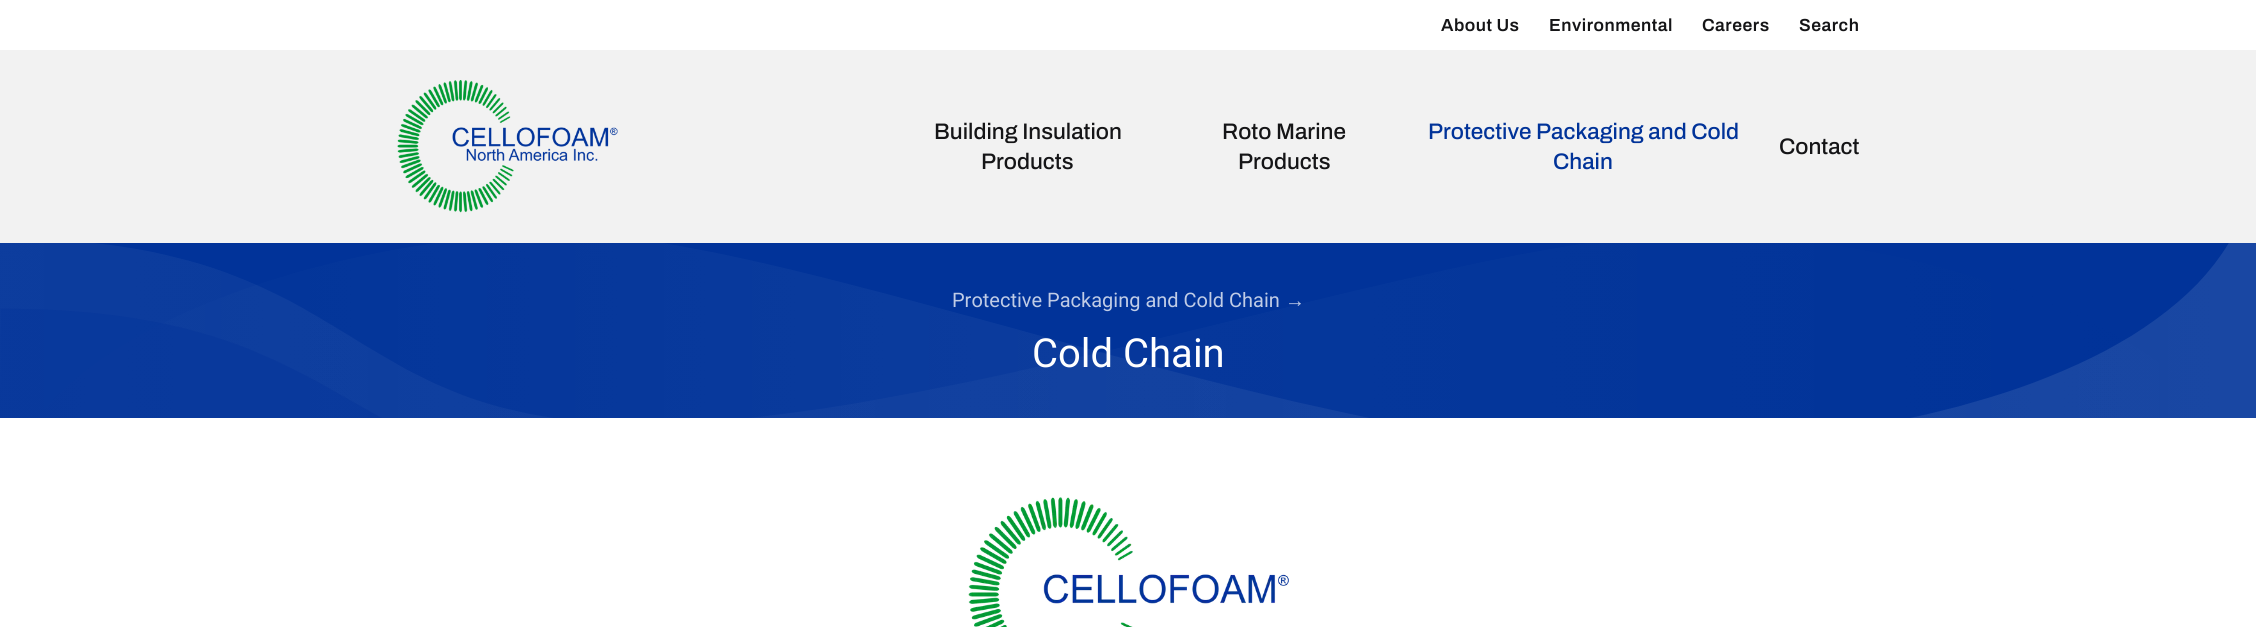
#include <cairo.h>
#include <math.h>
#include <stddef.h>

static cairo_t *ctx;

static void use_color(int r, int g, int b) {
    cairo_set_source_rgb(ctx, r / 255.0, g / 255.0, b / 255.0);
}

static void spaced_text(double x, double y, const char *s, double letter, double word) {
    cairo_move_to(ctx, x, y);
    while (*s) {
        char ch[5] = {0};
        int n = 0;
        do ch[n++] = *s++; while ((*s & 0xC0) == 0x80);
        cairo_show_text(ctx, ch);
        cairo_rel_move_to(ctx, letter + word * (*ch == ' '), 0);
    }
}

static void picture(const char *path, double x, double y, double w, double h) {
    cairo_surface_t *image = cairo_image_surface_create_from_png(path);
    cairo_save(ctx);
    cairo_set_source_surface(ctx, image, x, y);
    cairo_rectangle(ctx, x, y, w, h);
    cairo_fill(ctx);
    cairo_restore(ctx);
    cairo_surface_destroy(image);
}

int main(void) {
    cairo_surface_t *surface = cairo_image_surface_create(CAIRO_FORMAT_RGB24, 2256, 627);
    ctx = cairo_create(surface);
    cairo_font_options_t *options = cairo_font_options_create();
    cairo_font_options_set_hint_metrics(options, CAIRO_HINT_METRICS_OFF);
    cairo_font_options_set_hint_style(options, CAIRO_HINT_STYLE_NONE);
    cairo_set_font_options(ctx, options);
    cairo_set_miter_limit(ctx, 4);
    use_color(255, 255, 255);
    cairo_paint(ctx);
    cairo_select_font_face(ctx, "Archivo SemiBold", CAIRO_FONT_SLANT_NORMAL, CAIRO_FONT_WEIGHT_NORMAL);
    cairo_set_font_size(ctx, 17.5);
    use_color(21, 21, 23);
    spaced_text(1441, 31, "About Us", 0.5, 0);
    spaced_text(1549, 31, "Environmental", 0.5, 0);
    spaced_text(1702, 31, "Careers", 0.5, 0);
    spaced_text(1799, 31, "Search", 0.5, 0);
    use_color(242, 242, 242);
    cairo_rectangle(ctx, 0, 50, 2256, 193);
    cairo_fill(ctx);
    picture("img1.png", 397, 80, 221, 133);
    cairo_select_font_face(ctx, "Archivo Medium", CAIRO_FONT_SLANT_NORMAL, CAIRO_FONT_WEIGHT_NORMAL);
    cairo_set_font_size(ctx, 22.5);
    use_color(21, 21, 23);
    cairo_move_to(ctx, 934, 139);
    cairo_show_text(ctx, "Building Insulation");
    cairo_move_to(ctx, 981, 169);
    cairo_show_text(ctx, "Products");
    cairo_move_to(ctx, 1222, 139);
    cairo_show_text(ctx, "Roto Marine");
    cairo_move_to(ctx, 1238, 169);
    cairo_show_text(ctx, "Products");
    use_color(1, 51, 153);
    cairo_move_to(ctx, 1428, 139);
    cairo_show_text(ctx, "Protective Packaging and Cold");
    cairo_move_to(ctx, 1553, 169);
    cairo_show_text(ctx, "Chain");
    use_color(21, 21, 23);
    cairo_move_to(ctx, 1779, 154);
    cairo_show_text(ctx, "Contact");
    picture("img2.png", 0, 243, 2256, 175);
    cairo_select_font_face(ctx, "Roboto", CAIRO_FONT_SLANT_NORMAL, CAIRO_FONT_WEIGHT_NORMAL);
    cairo_set_font_size(ctx, 20);
    use_color(192, 204, 230);
    cairo_move_to(ctx, 952, 307);
    cairo_show_text(ctx, "Protective Packaging and Cold Chain");
    cairo_select_font_face(ctx, "Liberation Serif", CAIRO_FONT_SLANT_NORMAL, CAIRO_FONT_WEIGHT_NORMAL);
    cairo_move_to(ctx, 1285, 307);
    cairo_show_text(ctx, "→");
    cairo_select_font_face(ctx, "Roboto", CAIRO_FONT_SLANT_NORMAL, CAIRO_FONT_WEIGHT_NORMAL);
    cairo_set_font_size(ctx, 40);
    use_color(255, 255, 255);
    cairo_move_to(ctx, 1032, 367);
    cairo_show_text(ctx, "Cold Chain");
    picture("img3.png", 968, 497, 321, 130);
    cairo_surface_write_to_png(surface, "result.png");
    cairo_font_options_destroy(options);
    cairo_destroy(ctx);
    cairo_surface_destroy(surface);
    return 0;
}
